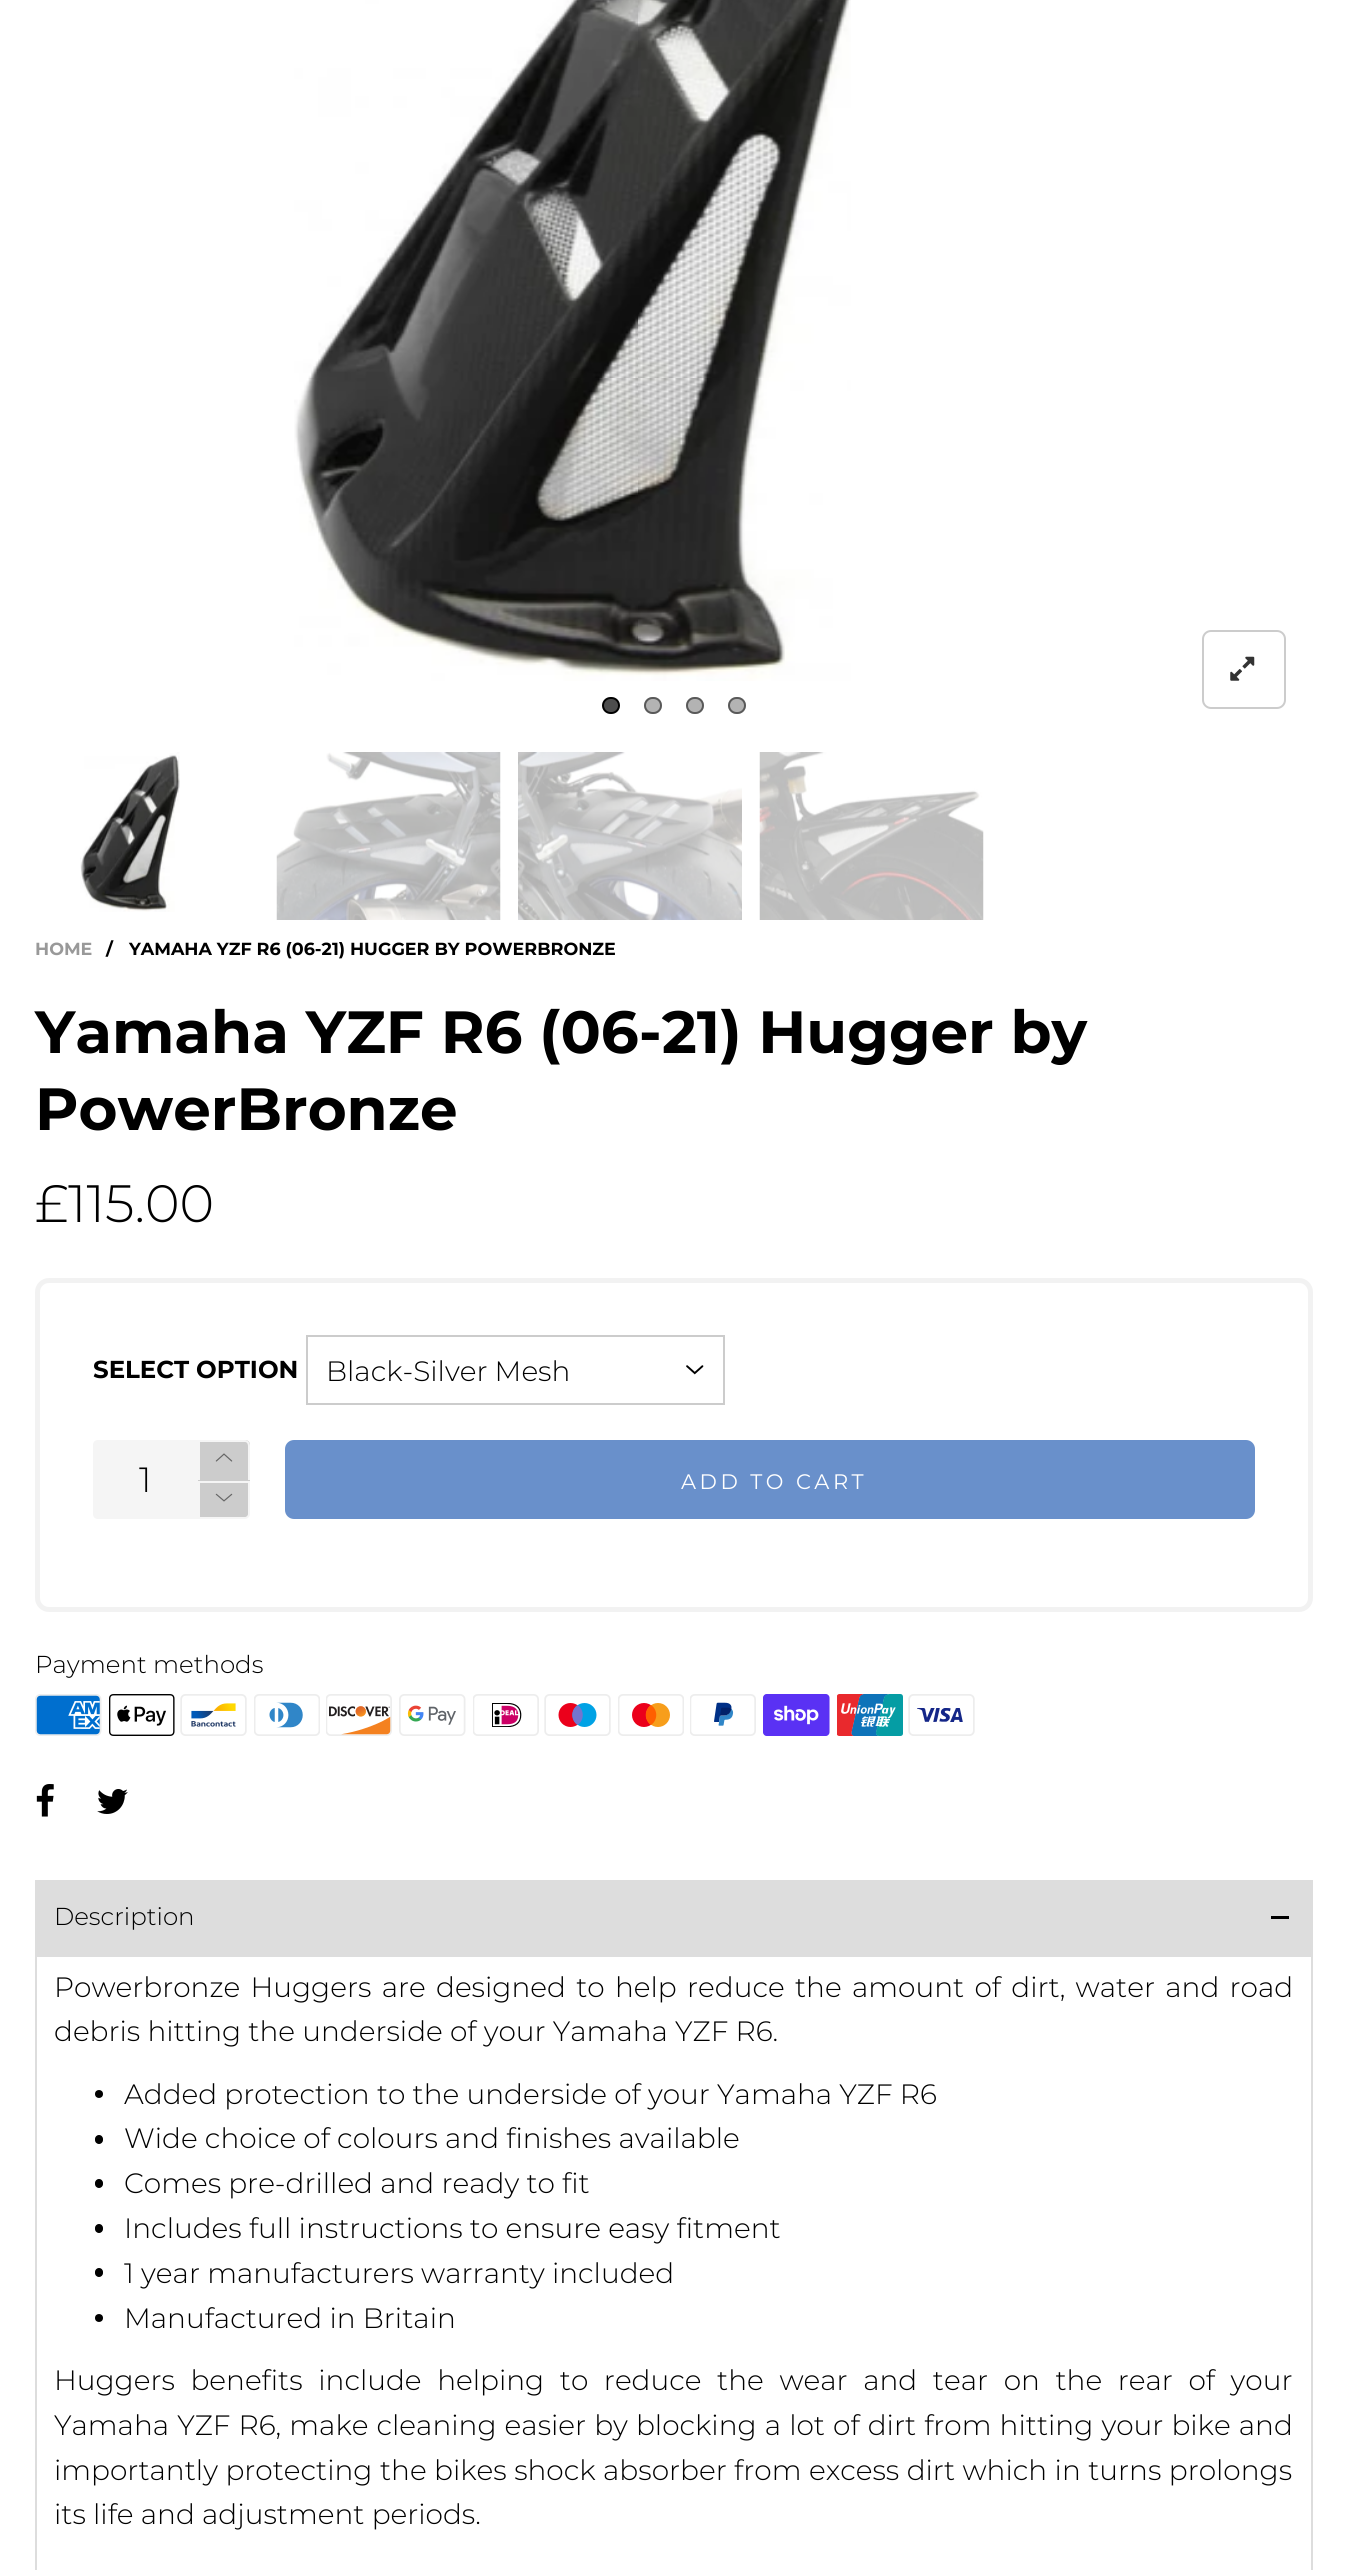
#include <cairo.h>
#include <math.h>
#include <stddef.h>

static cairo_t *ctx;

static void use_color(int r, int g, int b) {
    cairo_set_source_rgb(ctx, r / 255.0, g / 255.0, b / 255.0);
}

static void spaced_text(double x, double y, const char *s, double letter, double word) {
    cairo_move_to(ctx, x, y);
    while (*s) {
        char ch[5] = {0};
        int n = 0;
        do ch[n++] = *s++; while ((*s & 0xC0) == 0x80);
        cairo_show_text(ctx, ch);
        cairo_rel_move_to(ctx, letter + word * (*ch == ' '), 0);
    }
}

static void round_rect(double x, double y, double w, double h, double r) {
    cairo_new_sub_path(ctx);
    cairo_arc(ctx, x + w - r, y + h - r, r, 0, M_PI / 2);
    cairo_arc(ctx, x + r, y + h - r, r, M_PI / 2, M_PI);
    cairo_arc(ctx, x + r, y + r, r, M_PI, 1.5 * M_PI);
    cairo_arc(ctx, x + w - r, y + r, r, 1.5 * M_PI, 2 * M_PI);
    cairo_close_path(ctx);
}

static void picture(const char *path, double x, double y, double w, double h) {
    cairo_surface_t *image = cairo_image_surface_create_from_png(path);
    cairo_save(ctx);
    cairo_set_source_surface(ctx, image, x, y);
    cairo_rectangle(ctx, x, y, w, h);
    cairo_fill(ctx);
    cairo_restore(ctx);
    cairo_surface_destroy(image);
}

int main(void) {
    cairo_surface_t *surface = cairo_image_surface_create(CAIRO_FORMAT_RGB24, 1346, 2570);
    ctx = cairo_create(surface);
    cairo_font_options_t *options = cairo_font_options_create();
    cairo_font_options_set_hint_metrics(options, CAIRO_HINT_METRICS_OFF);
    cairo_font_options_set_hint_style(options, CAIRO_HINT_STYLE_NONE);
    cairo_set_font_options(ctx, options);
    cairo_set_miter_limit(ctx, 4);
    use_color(255, 255, 255);
    cairo_paint(ctx);
    picture("img1.png", 294, 0, 557, 681);
    use_color(77, 77, 77);
    round_rect(603, 698, 16, 15, 7.5);
    cairo_fill_preserve(ctx);
    use_color(1, 1, 1);
    cairo_stroke(ctx);
    use_color(179, 179, 179);
    round_rect(644, 697, 18, 17, 8.5);
    cairo_fill(ctx);
    round_rect(645, 698, 16, 15, 7.5);
    cairo_set_source_rgba(ctx, 0.004, 0.004, 0.004, 0.5);
    cairo_stroke(ctx);
    use_color(179, 179, 179);
    round_rect(686, 697, 18, 17, 8.5);
    cairo_fill(ctx);
    round_rect(687, 698, 16, 15, 7.5);
    cairo_set_source_rgba(ctx, 0.004, 0.004, 0.004, 0.5);
    cairo_stroke(ctx);
    use_color(179, 179, 179);
    round_rect(728, 697, 18, 17, 8.5);
    cairo_fill(ctx);
    round_rect(729, 698, 16, 15, 7.5);
    cairo_set_source_rgba(ctx, 0.004, 0.004, 0.004, 0.5);
    cairo_stroke(ctx);
    round_rect(1203, 631, 82, 77, 8);
    use_color(204, 204, 204);
    cairo_stroke(ctx);
    picture("img2.png", 1230, 656, 25, 25);
    picture("img3.png", 80, 752, 100, 160);
    picture("img4.png", 276, 752, 225, 168);
    picture("img5.png", 518, 752, 224, 168);
    picture("img6.png", 759, 752, 225, 168);
    cairo_select_font_face(ctx, "Montserrat", CAIRO_FONT_SLANT_NORMAL, CAIRO_FONT_WEIGHT_BOLD);
    cairo_set_font_size(ctx, 17.5);
    use_color(153, 153, 153);
    cairo_move_to(ctx, 35, 955);
    cairo_show_text(ctx, "HOME");
    use_color(0, 0, 0);
    cairo_move_to(ctx, 106, 955);
    cairo_show_text(ctx, "/");
    cairo_move_to(ctx, 129, 955);
    cairo_show_text(ctx, "YAMAHA YZF R6 (06-21) HUGGER BY POWERBRONZE");
    cairo_set_font_size(ctx, 59.5);
    cairo_move_to(ctx, 35, 1053);
    cairo_show_text(ctx, "Yamaha YZF R6 (06-21) Hugger by");
    cairo_move_to(ctx, 35, 1130);
    cairo_show_text(ctx, "PowerBronze");
    cairo_select_font_face(ctx, "Montserrat Light", CAIRO_FONT_SLANT_NORMAL, CAIRO_FONT_WEIGHT_NORMAL);
    cairo_set_font_size(ctx, 52.5);
    cairo_move_to(ctx, 35, 1222);
    cairo_show_text(ctx, "£115.00");
    round_rect(37.5, 1280.5, 1273, 329, 11.5);
    use_color(242, 242, 242);
    cairo_set_line_width(ctx, 5);
    cairo_stroke(ctx);
    cairo_select_font_face(ctx, "Montserrat", CAIRO_FONT_SLANT_NORMAL, CAIRO_FONT_WEIGHT_BOLD);
    cairo_set_font_size(ctx, 24.5);
    use_color(0, 0, 0);
    cairo_move_to(ctx, 93, 1378);
    cairo_show_text(ctx, "SELECT OPTION");
    cairo_rectangle(ctx, 307, 1336, 417, 68);
    use_color(204, 204, 204);
    cairo_set_line_width(ctx, 2);
    cairo_stroke(ctx);
    cairo_select_font_face(ctx, "Montserrat Light", CAIRO_FONT_SLANT_NORMAL, CAIRO_FONT_WEIGHT_NORMAL);
    cairo_set_font_size(ctx, 28);
    use_color(0, 0, 0);
    cairo_move_to(ctx, 326, 1381);
    cairo_show_text(ctx, "Black-Silver Mesh");
    picture("img7.png", 686, 1365, 18, 10);
    use_color(245, 245, 245);
    cairo_new_path(ctx);
    cairo_move_to(ctx, 98, 1440);
    cairo_line_to(ctx, 198, 1440);
    cairo_line_to(ctx, 198, 1519);
    cairo_line_to(ctx, 98, 1519);
    cairo_curve_to(ctx, 95, 1519, 93, 1517, 93, 1514);
    cairo_line_to(ctx, 93, 1445);
    cairo_curve_to(ctx, 93, 1442, 95, 1440, 98, 1440);
    cairo_close_path(ctx);
    cairo_fill(ctx);
    cairo_set_font_size(ctx, 35);
    use_color(0, 0, 0);
    cairo_move_to(ctx, 139, 1492);
    cairo_show_text(ctx, "1");
    use_color(204, 204, 204);
    cairo_new_path(ctx);
    cairo_move_to(ctx, 198, 1440);
    cairo_line_to(ctx, 245, 1440);
    cairo_curve_to(ctx, 248, 1440, 250, 1442, 250, 1445);
    cairo_line_to(ctx, 250, 1481);
    cairo_line_to(ctx, 198, 1481);
    cairo_close_path(ctx);
    cairo_fill(ctx);
    use_color(245, 245, 245);
    cairo_set_fill_rule(ctx, CAIRO_FILL_RULE_EVEN_ODD);
    cairo_new_path(ctx);
    cairo_move_to(ctx, 198, 1440);
    cairo_line_to(ctx, 245, 1440);
    cairo_curve_to(ctx, 248, 1440, 250, 1443, 250, 1446);
    cairo_line_to(ctx, 250, 1480);
    cairo_line_to(ctx, 198, 1480);
    cairo_close_path(ctx);
    cairo_move_to(ctx, 200, 1442);
    cairo_line_to(ctx, 245, 1442);
    cairo_curve_to(ctx, 247, 1442, 248, 1444, 248, 1446);
    cairo_line_to(ctx, 248, 1480);
    cairo_line_to(ctx, 200, 1480);
    cairo_close_path(ctx);
    cairo_fill(ctx);
    picture("img8.png", 215, 1453, 18, 9);
    use_color(204, 204, 204);
    cairo_new_path(ctx);
    cairo_move_to(ctx, 199, 1482);
    cairo_line_to(ctx, 249, 1482);
    cairo_line_to(ctx, 249, 1514);
    cairo_curve_to(ctx, 249, 1516, 247, 1518, 245, 1518);
    cairo_line_to(ctx, 199, 1518);
    cairo_close_path(ctx);
    cairo_fill_preserve(ctx);
    use_color(245, 245, 245);
    cairo_stroke(ctx);
    picture("img9.png", 215, 1493, 18, 9);
    use_color(105, 144, 203);
    round_rect(286, 1441, 968, 77, 8);
    cairo_fill_preserve(ctx);
    cairo_stroke(ctx);
    cairo_select_font_face(ctx, "Montserrat", CAIRO_FONT_SLANT_NORMAL, CAIRO_FONT_WEIGHT_NORMAL);
    cairo_set_font_size(ctx, 21);
    use_color(255, 255, 255);
    spaced_text(681, 1489, "ADD TO CART", 3.5, 0);
    cairo_select_font_face(ctx, "Montserrat Light", CAIRO_FONT_SLANT_NORMAL, CAIRO_FONT_WEIGHT_NORMAL);
    cairo_set_font_size(ctx, 24.5);
    use_color(0, 0, 0);
    cairo_move_to(ctx, 35, 1673);
    cairo_show_text(ctx, "Payment methods");
    picture("img10.png", 35, 1694, 67, 42);
    picture("img11.png", 109, 1694, 66, 42);
    picture("img12.png", 180, 1694, 67, 42);
    picture("img13.png", 254, 1694, 66, 42);
    picture("img14.png", 326, 1694, 66, 42);
    picture("img15.png", 399, 1694, 67, 42);
    picture("img16.png", 473, 1694, 66, 42);
    picture("img17.png", 544, 1694, 67, 42);
    picture("img18.png", 618, 1694, 66, 42);
    picture("img19.png", 690, 1694, 66, 42);
    picture("img20.png", 763, 1694, 67, 42);
    picture("img21.png", 837, 1694, 66, 42);
    picture("img22.png", 908, 1694, 67, 42);
    picture("img23.png", 36, 1784, 18, 33);
    picture("img24.png", 97, 1789, 31, 25);
    use_color(221, 221, 221);
    cairo_rectangle(ctx, 35, 1880, 1278, 1);
    cairo_fill(ctx);
    cairo_rectangle(ctx, 1311, 1880, 2, 690);
    cairo_fill(ctx);
    cairo_rectangle(ctx, 35, 1880, 2, 690);
    cairo_fill(ctx);
    cairo_rectangle(ctx, 37, 1881, 1274, 76);
    cairo_fill(ctx);
    use_color(0, 0, 0);
    cairo_move_to(ctx, 54, 1925);
    cairo_show_text(ctx, "Description");
    cairo_rectangle(ctx, 1271, 1916, 18, 3);
    cairo_fill(ctx);
    cairo_set_font_size(ctx, 28);
    spaced_text(54, 1997, "Powerbronze Huggers are designed to help reduce the amount of dirt, water and road", 0, 3.1);
    cairo_move_to(ctx, 54, 2041);
    cairo_show_text(ctx, "debris hitting the underside of your Yamaha YZF R6.");
    cairo_new_path(ctx);
    cairo_arc(ctx, 99, 2094, 4, 0, 2 * M_PI);
    cairo_fill(ctx);
    cairo_move_to(ctx, 124, 2104);
    cairo_show_text(ctx, "Added protection to the underside of your Yamaha YZF R6");
    round_rect(95, 2135, 8, 9, 4);
    cairo_fill(ctx);
    cairo_move_to(ctx, 124, 2148);
    cairo_show_text(ctx, "Wide choice of colours and finishes available");
    round_rect(95, 2179, 8, 9, 4);
    cairo_fill(ctx);
    cairo_move_to(ctx, 124, 2193);
    cairo_show_text(ctx, "Comes pre-drilled and ready to fit");
    round_rect(95, 2224, 8, 9, 4);
    cairo_fill(ctx);
    cairo_move_to(ctx, 124, 2238);
    cairo_show_text(ctx, "Includes full instructions to ensure easy fitment");
    round_rect(95, 2268, 8, 9, 4);
    cairo_fill(ctx);
    cairo_move_to(ctx, 124, 2283);
    cairo_show_text(ctx, "1 year manufacturers warranty included");
    cairo_new_path(ctx);
    cairo_arc(ctx, 99, 2318, 4, 0, 2 * M_PI);
    cairo_fill(ctx);
    cairo_move_to(ctx, 124, 2328);
    cairo_show_text(ctx, "Manufactured in Britain");
    spaced_text(54, 2390, "Huggers benefits include helping to reduce the wear and tear on the rear of your", 0, 8.4);
    spaced_text(54, 2435, "Yamaha YZF R6, make cleaning easier by blocking a lot of dirt from hitting your bike and", 0, 0.9);
    spaced_text(54, 2480, "importantly protecting the bikes shock absorber from excess dirt which in turns prolongs", 0, 0.25);
    cairo_move_to(ctx, 54, 2524);
    cairo_show_text(ctx, "its life and adjustment periods.");
    cairo_surface_write_to_png(surface, "result.png");
    cairo_font_options_destroy(options);
    cairo_destroy(ctx);
    cairo_surface_destroy(surface);
    return 0;
}
